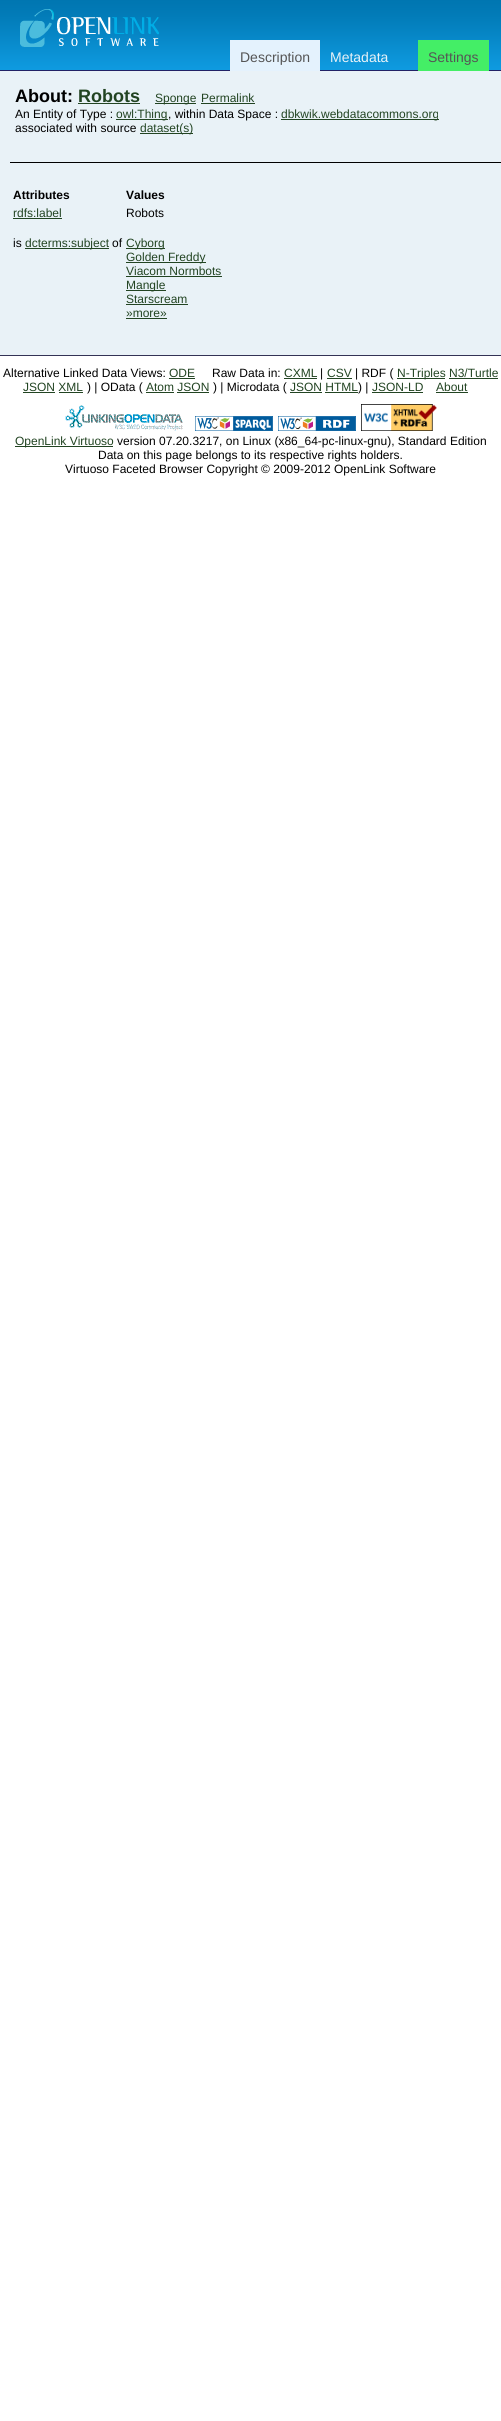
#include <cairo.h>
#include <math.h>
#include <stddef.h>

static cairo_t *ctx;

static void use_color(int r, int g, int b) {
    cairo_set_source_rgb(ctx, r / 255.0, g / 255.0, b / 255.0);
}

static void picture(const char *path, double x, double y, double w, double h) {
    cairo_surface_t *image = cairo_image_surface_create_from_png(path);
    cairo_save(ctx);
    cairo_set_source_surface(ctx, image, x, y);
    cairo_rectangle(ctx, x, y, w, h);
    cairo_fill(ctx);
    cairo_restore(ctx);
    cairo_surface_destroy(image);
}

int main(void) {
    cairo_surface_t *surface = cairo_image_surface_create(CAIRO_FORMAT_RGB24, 501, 2421);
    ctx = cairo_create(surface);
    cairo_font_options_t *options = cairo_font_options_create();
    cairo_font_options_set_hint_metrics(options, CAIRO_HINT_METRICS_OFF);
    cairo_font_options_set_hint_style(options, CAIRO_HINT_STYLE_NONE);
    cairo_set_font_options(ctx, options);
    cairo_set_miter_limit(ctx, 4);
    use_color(255, 255, 255);
    cairo_paint(ctx);
    picture("img1.png", 0, 0, 501, 70);
    use_color(34, 34, 102);
    cairo_rectangle(ctx, 0, 70, 501, 1);
    cairo_fill(ctx);
    picture("img2.png", 20, 9, 139, 38);
    use_color(228, 242, 253);
    cairo_rectangle(ctx, 230, 40, 90, 31);
    cairo_fill(ctx);
    cairo_select_font_face(ctx, "Liberation Sans", CAIRO_FONT_SLANT_NORMAL, CAIRO_FONT_WEIGHT_NORMAL);
    cairo_set_font_size(ctx, 14);
    use_color(85, 85, 85);
    cairo_move_to(ctx, 240, 62);
    cairo_show_text(ctx, "Description");
    use_color(233, 242, 247);
    cairo_move_to(ctx, 330, 62);
    cairo_show_text(ctx, "Metadata");
    use_color(68, 238, 102);
    cairo_rectangle(ctx, 418, 40, 71, 31);
    cairo_fill(ctx);
    use_color(85, 85, 85);
    cairo_move_to(ctx, 428, 62);
    cairo_show_text(ctx, "Settings");
    use_color(233, 242, 247);
    cairo_rectangle(ctx, 0, 71, 501, 284);
    cairo_fill(ctx);
    cairo_select_font_face(ctx, "Liberation Sans", CAIRO_FONT_SLANT_NORMAL, CAIRO_FONT_WEIGHT_BOLD);
    cairo_set_font_size(ctx, 18);
    use_color(0, 0, 0);
    cairo_move_to(ctx, 15, 102);
    cairo_show_text(ctx, "About:");
    use_color(34, 68, 34);
    cairo_move_to(ctx, 78, 102);
    cairo_show_text(ctx, "Robots");
    cairo_rectangle(ctx, 78, 103, 62, 1);
    cairo_fill(ctx);
    cairo_rectangle(ctx, 155, 103, 41, 1);
    cairo_fill(ctx);
    cairo_select_font_face(ctx, "Liberation Sans", CAIRO_FONT_SLANT_NORMAL, CAIRO_FONT_WEIGHT_NORMAL);
    cairo_set_font_size(ctx, 12);
    cairo_move_to(ctx, 155, 102);
    cairo_show_text(ctx, "Sponge");
    cairo_move_to(ctx, 201, 102);
    cairo_show_text(ctx, "Permalink");
    cairo_rectangle(ctx, 201, 103, 54, 1);
    cairo_fill(ctx);
    use_color(0, 0, 0);
    cairo_move_to(ctx, 15, 118);
    cairo_show_text(ctx, "An Entity of Type :");
    use_color(34, 68, 34);
    cairo_rectangle(ctx, 116, 119, 52, 1);
    cairo_fill(ctx);
    cairo_move_to(ctx, 116, 118);
    cairo_show_text(ctx, "owl:Thing");
    use_color(0, 0, 0);
    cairo_move_to(ctx, 168, 118);
    cairo_show_text(ctx, ", within Data Space :");
    use_color(34, 68, 34);
    cairo_rectangle(ctx, 281, 119, 158, 1);
    cairo_fill(ctx);
    cairo_move_to(ctx, 281, 118);
    cairo_show_text(ctx, "dbkwik.webdatacommons.org");
    use_color(0, 0, 0);
    cairo_move_to(ctx, 15, 132);
    cairo_show_text(ctx, "associated with source");
    use_color(34, 68, 34);
    cairo_rectangle(ctx, 140, 133, 53, 1);
    cairo_fill(ctx);
    cairo_move_to(ctx, 140, 132);
    cairo_show_text(ctx, "dataset(s)");
    use_color(0, 0, 0);
    cairo_rectangle(ctx, 10, 162, 491, 1);
    cairo_fill(ctx);
    cairo_select_font_face(ctx, "Liberation Sans", CAIRO_FONT_SLANT_NORMAL, CAIRO_FONT_WEIGHT_BOLD);
    cairo_move_to(ctx, 13, 199);
    cairo_show_text(ctx, "Attributes");
    cairo_move_to(ctx, 126, 199);
    cairo_show_text(ctx, "Values");
    cairo_select_font_face(ctx, "Liberation Sans", CAIRO_FONT_SLANT_NORMAL, CAIRO_FONT_WEIGHT_NORMAL);
    use_color(34, 68, 34);
    cairo_move_to(ctx, 13, 217);
    cairo_show_text(ctx, "rdfs:label");
    cairo_rectangle(ctx, 13, 218, 49, 1);
    cairo_fill(ctx);
    use_color(0, 0, 0);
    cairo_move_to(ctx, 126, 217);
    cairo_show_text(ctx, "Robots");
    cairo_move_to(ctx, 13, 247);
    cairo_show_text(ctx, "is");
    use_color(34, 68, 34);
    cairo_rectangle(ctx, 25, 248, 84, 1);
    cairo_fill(ctx);
    cairo_move_to(ctx, 25, 247);
    cairo_show_text(ctx, "dcterms:subject");
    use_color(0, 0, 0);
    cairo_move_to(ctx, 112, 247);
    cairo_show_text(ctx, "of");
    use_color(34, 68, 34);
    cairo_rectangle(ctx, 126, 248, 39, 1);
    cairo_fill(ctx);
    cairo_move_to(ctx, 126, 247);
    cairo_show_text(ctx, "Cyborg");
    cairo_rectangle(ctx, 126, 262, 80, 1);
    cairo_fill(ctx);
    cairo_move_to(ctx, 126, 261);
    cairo_show_text(ctx, "Golden Freddy");
    cairo_move_to(ctx, 126, 275);
    cairo_show_text(ctx, "Viacom Normbots");
    cairo_rectangle(ctx, 126, 276, 96, 1);
    cairo_fill(ctx);
    cairo_rectangle(ctx, 126, 290, 40, 1);
    cairo_fill(ctx);
    cairo_move_to(ctx, 126, 289);
    cairo_show_text(ctx, "Mangle");
    cairo_move_to(ctx, 126, 303);
    cairo_show_text(ctx, "Starscream");
    cairo_rectangle(ctx, 126, 304, 62, 1);
    cairo_fill(ctx);
    cairo_move_to(ctx, 126, 317);
    cairo_show_text(ctx, "»more»");
    cairo_rectangle(ctx, 126, 318, 41, 1);
    cairo_fill(ctx);
    use_color(51, 51, 85);
    cairo_rectangle(ctx, 0, 355, 501, 1);
    cairo_fill(ctx);
    use_color(0, 0, 0);
    cairo_move_to(ctx, 3, 377);
    cairo_show_text(ctx, "Alternative Linked Data Views:");
    use_color(34, 68, 34);
    cairo_move_to(ctx, 169, 377);
    cairo_show_text(ctx, "ODE");
    cairo_rectangle(ctx, 169, 378, 26, 1);
    cairo_fill(ctx);
    use_color(0, 0, 0);
    cairo_move_to(ctx, 212, 377);
    cairo_show_text(ctx, "Raw Data in:");
    use_color(34, 68, 34);
    cairo_move_to(ctx, 284, 377);
    cairo_show_text(ctx, "CXML");
    cairo_rectangle(ctx, 284, 378, 33, 1);
    cairo_fill(ctx);
    use_color(0, 0, 0);
    cairo_move_to(ctx, 320, 377);
    cairo_show_text(ctx, "|");
    use_color(34, 68, 34);
    cairo_move_to(ctx, 327, 377);
    cairo_show_text(ctx, "CSV");
    cairo_rectangle(ctx, 327, 378, 25, 1);
    cairo_fill(ctx);
    use_color(0, 0, 0);
    cairo_move_to(ctx, 355, 377);
    cairo_show_text(ctx, "| RDF (");
    use_color(34, 68, 34);
    cairo_rectangle(ctx, 397, 378, 48, 1);
    cairo_fill(ctx);
    cairo_move_to(ctx, 397, 377);
    cairo_show_text(ctx, "N-Triples N3/Turtle");
    cairo_rectangle(ctx, 449, 378, 49, 1);
    cairo_fill(ctx);
    cairo_move_to(ctx, 23, 391);
    cairo_show_text(ctx, "JSON XML");
    cairo_rectangle(ctx, 23, 392, 32, 1);
    cairo_fill(ctx);
    use_color(0, 0, 0);
    cairo_move_to(ctx, 87, 391);
    cairo_show_text(ctx, ") | OData (");
    use_color(34, 68, 34);
    cairo_move_to(ctx, 146, 391);
    cairo_show_text(ctx, "Atom JSON");
    cairo_rectangle(ctx, 146, 392, 28, 1);
    cairo_fill(ctx);
    use_color(0, 0, 0);
    cairo_move_to(ctx, 213, 391);
    cairo_show_text(ctx, ") | Microdata (");
    use_color(34, 68, 34);
    cairo_move_to(ctx, 290, 391);
    cairo_show_text(ctx, "JSON HTML");
    cairo_rectangle(ctx, 290, 392, 32, 1);
    cairo_fill(ctx);
    cairo_rectangle(ctx, 325, 392, 33, 1);
    cairo_fill(ctx);
    use_color(0, 0, 0);
    cairo_move_to(ctx, 358, 391);
    cairo_show_text(ctx, ") |");
    use_color(34, 68, 34);
    cairo_move_to(ctx, 372, 391);
    cairo_show_text(ctx, "JSON-LD");
    cairo_rectangle(ctx, 372, 392, 51, 1);
    cairo_fill(ctx);
    cairo_move_to(ctx, 436, 391);
    cairo_show_text(ctx, "About");
    cairo_rectangle(ctx, 436, 392, 32, 1);
    cairo_fill(ctx);
    cairo_rectangle(ctx, 59, 392, 24, 1);
    cairo_fill(ctx);
    cairo_rectangle(ctx, 177, 392, 32, 1);
    cairo_fill(ctx);
    picture("img3.png", 65, 405, 118, 26);
    picture("img4.png", 195, 416, 78, 15);
    picture("img5.png", 278, 416, 78, 15);
    picture("img6.png", 361, 404, 76, 27);
    cairo_rectangle(ctx, 15, 446, 98, 1);
    cairo_fill(ctx);
    cairo_move_to(ctx, 15, 445);
    cairo_show_text(ctx, "OpenLink Virtuoso");
    use_color(0, 0, 0);
    cairo_move_to(ctx, 117, 445);
    cairo_show_text(ctx, "version 07.20.3217, on Linux (x86_64-pc-linux-gnu), Standard Edition");
    cairo_move_to(ctx, 98, 459);
    cairo_show_text(ctx, "Data on this page belongs to its respective rights holders.");
    cairo_move_to(ctx, 65, 473);
    cairo_show_text(ctx, "Virtuoso Faceted Browser Copyright © 2009-2012 OpenLink Software");
    cairo_surface_write_to_png(surface, "result.png");
    cairo_font_options_destroy(options);
    cairo_destroy(ctx);
    cairo_surface_destroy(surface);
    return 0;
}
